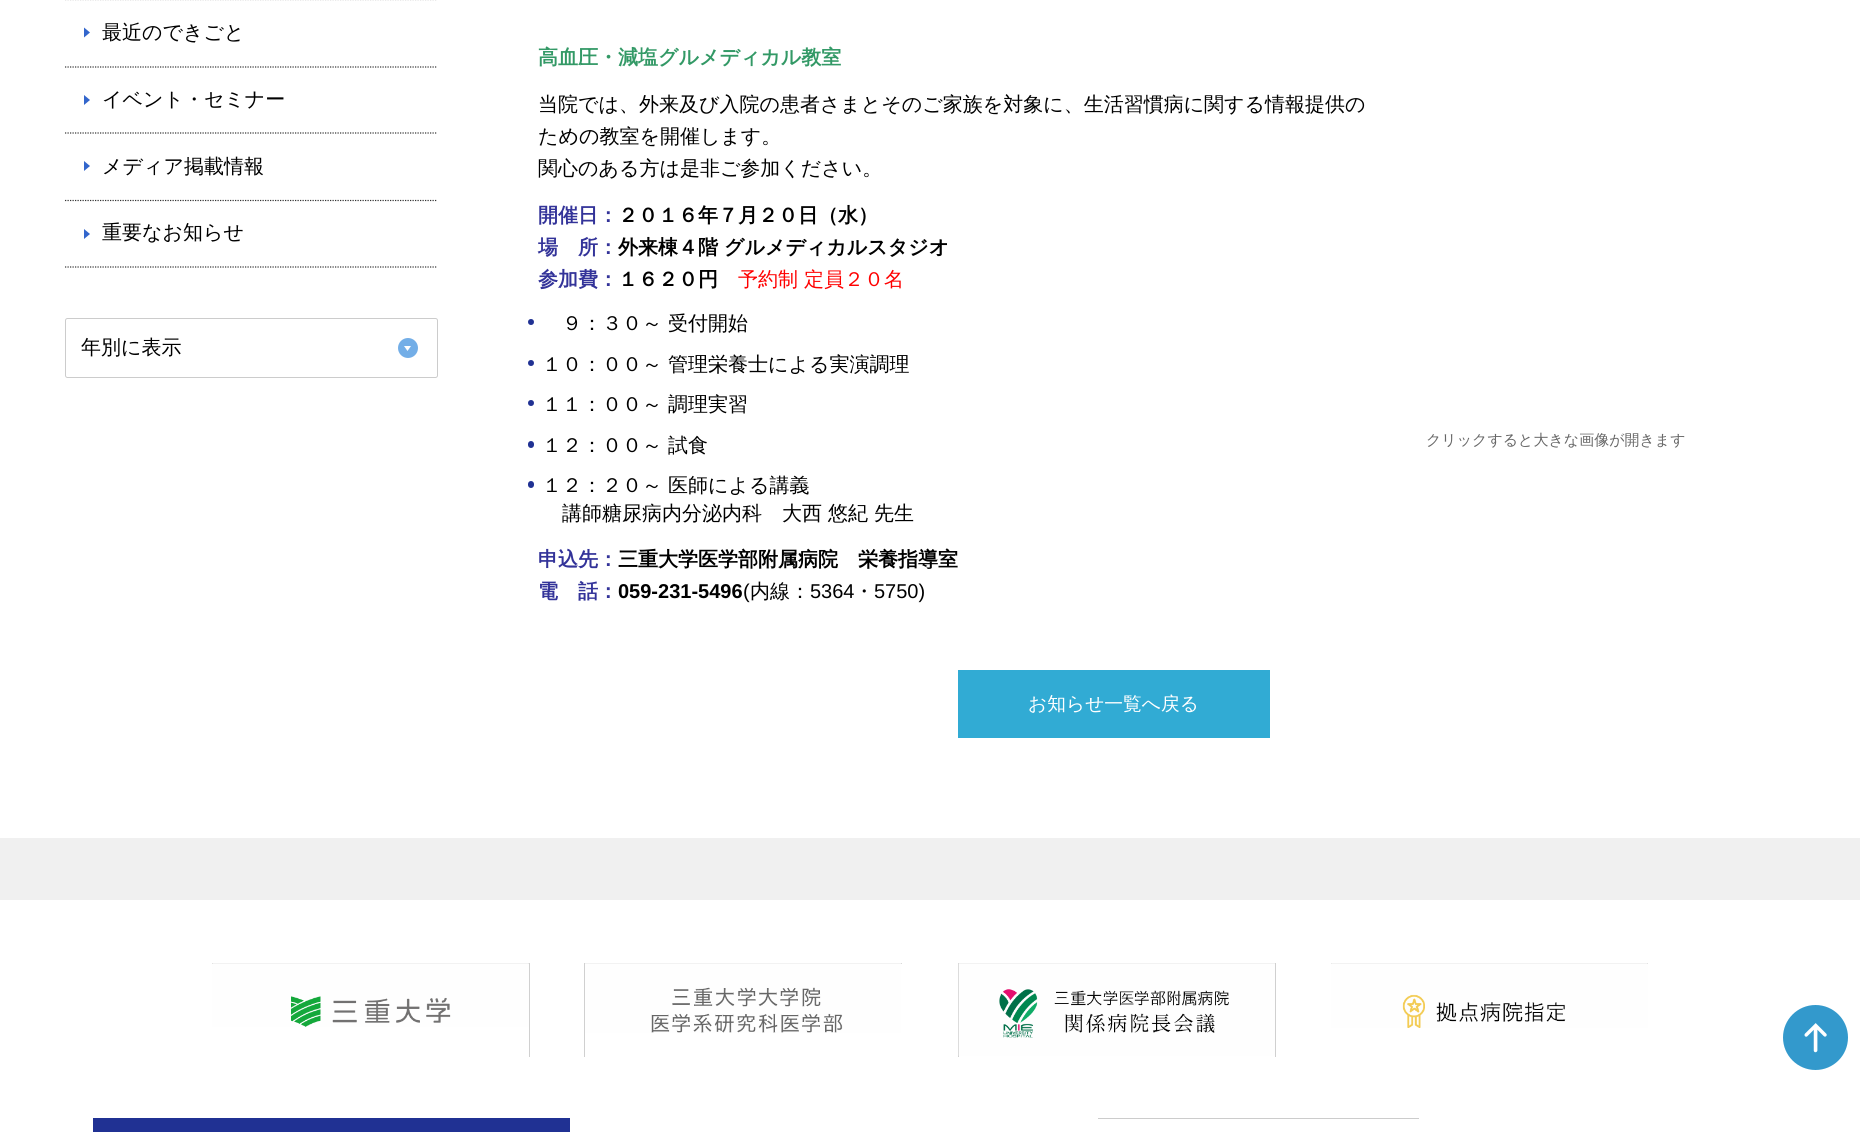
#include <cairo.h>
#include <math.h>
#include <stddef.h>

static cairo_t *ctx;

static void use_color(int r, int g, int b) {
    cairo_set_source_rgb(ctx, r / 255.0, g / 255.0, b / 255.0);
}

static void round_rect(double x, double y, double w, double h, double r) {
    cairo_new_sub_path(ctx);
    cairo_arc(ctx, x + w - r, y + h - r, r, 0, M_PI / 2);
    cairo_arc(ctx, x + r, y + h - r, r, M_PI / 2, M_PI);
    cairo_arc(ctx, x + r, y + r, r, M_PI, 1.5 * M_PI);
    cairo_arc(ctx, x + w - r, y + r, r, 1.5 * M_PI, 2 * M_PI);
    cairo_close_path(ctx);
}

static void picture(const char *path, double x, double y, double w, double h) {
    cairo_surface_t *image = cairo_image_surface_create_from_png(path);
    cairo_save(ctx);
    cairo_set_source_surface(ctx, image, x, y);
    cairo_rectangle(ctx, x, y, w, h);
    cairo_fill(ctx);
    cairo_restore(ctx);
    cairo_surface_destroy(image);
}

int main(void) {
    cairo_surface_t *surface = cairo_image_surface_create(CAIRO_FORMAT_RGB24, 1860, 1132);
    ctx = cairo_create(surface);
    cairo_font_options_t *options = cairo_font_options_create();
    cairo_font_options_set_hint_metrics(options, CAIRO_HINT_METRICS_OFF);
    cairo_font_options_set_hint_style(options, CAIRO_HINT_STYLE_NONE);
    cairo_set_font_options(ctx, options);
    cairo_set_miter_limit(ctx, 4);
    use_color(255, 255, 255);
    cairo_paint(ctx);
    use_color(240, 240, 240);
    cairo_rectangle(ctx, 0, 838, 1860, 62);
    cairo_fill(ctx);
    cairo_new_path(ctx);
    cairo_move_to(ctx, 65, -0.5);
    cairo_line_to(ctx, 437.5, -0.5);
    use_color(51, 51, 51);
    cairo_set_line_width(ctx, 1.2);
    cairo_set_dash(ctx, (double[]){1.25, 1.25}, 2, 0);
    cairo_stroke(ctx);
    cairo_new_path(ctx);
    cairo_move_to(ctx, 65, 67);
    cairo_line_to(ctx, 437.5, 67);
    cairo_stroke(ctx);
    use_color(51, 102, 204);
    cairo_new_path(ctx);
    cairo_move_to(ctx, 84, 37.5);
    cairo_line_to(ctx, 84, 27.5);
    cairo_line_to(ctx, 90, 32.5);
    cairo_close_path(ctx);
    cairo_fill(ctx);
    cairo_select_font_face(ctx, "WenQuanYi Zen Hei Medium", CAIRO_FONT_SLANT_NORMAL, CAIRO_FONT_WEIGHT_NORMAL);
    cairo_set_font_size(ctx, 20);
    use_color(0, 0, 0);
    cairo_move_to(ctx, 102, 39);
    cairo_show_text(ctx, "最近のできごと");
    cairo_new_path(ctx);
    cairo_move_to(ctx, 65, 133);
    cairo_line_to(ctx, 437.5, 133);
    use_color(51, 51, 51);
    cairo_stroke(ctx);
    use_color(51, 102, 204);
    cairo_new_path(ctx);
    cairo_move_to(ctx, 84, 105);
    cairo_line_to(ctx, 84, 95);
    cairo_line_to(ctx, 90, 100);
    cairo_close_path(ctx);
    cairo_fill(ctx);
    use_color(0, 0, 0);
    cairo_move_to(ctx, 102, 106);
    cairo_show_text(ctx, "イベント・セミナー");
    cairo_new_path(ctx);
    cairo_move_to(ctx, 65, 200.5);
    cairo_line_to(ctx, 437.5, 200.5);
    use_color(51, 51, 51);
    cairo_stroke(ctx);
    use_color(51, 102, 204);
    cairo_new_path(ctx);
    cairo_move_to(ctx, 84, 171);
    cairo_line_to(ctx, 84, 161);
    cairo_line_to(ctx, 90, 166);
    cairo_close_path(ctx);
    cairo_fill(ctx);
    use_color(0, 0, 0);
    cairo_move_to(ctx, 102, 173);
    cairo_show_text(ctx, "メディア掲載情報");
    cairo_new_path(ctx);
    cairo_move_to(ctx, 65, 267);
    cairo_line_to(ctx, 437.5, 267);
    use_color(51, 51, 51);
    cairo_stroke(ctx);
    use_color(51, 102, 204);
    cairo_new_path(ctx);
    cairo_move_to(ctx, 84, 239);
    cairo_line_to(ctx, 84, 229);
    cairo_line_to(ctx, 90, 234);
    cairo_close_path(ctx);
    cairo_fill(ctx);
    use_color(0, 0, 0);
    cairo_move_to(ctx, 102, 239);
    cairo_show_text(ctx, "重要なお知らせ");
    round_rect(65.5, 318.5, 372, 59, 2);
    use_color(204, 204, 204);
    cairo_set_line_width(ctx, 1);
    cairo_set_dash(ctx, NULL, 0, 0);
    cairo_stroke(ctx);
    use_color(0, 0, 0);
    cairo_move_to(ctx, 81, 354);
    cairo_show_text(ctx, "年別に表示");
    use_color(115, 174, 231);
    cairo_new_path(ctx);
    cairo_arc(ctx, 408, 348, 10, 0, 2 * M_PI);
    cairo_fill(ctx);
    use_color(255, 255, 255);
    cairo_new_path(ctx);
    cairo_move_to(ctx, 404, 346);
    cairo_line_to(ctx, 411, 346);
    cairo_line_to(ctx, 407.5, 351);
    cairo_close_path(ctx);
    cairo_fill(ctx);
    cairo_select_font_face(ctx, "WenQuanYi Zen Hei", CAIRO_FONT_SLANT_NORMAL, CAIRO_FONT_WEIGHT_BOLD);
    use_color(51, 153, 102);
    cairo_move_to(ctx, 538, 64);
    cairo_show_text(ctx, "高血圧・減塩グルメディカル教室");
    cairo_select_font_face(ctx, "WenQuanYi Zen Hei Medium", CAIRO_FONT_SLANT_NORMAL, CAIRO_FONT_WEIGHT_NORMAL);
    use_color(0, 0, 0);
    cairo_move_to(ctx, 538, 111);
    cairo_show_text(ctx, "当院では、外来及び入院の患者さまとそのご家族を対象に、生活習慣病に関する情報提供の");
    cairo_move_to(ctx, 538, 143);
    cairo_show_text(ctx, "ための教室を開催します。");
    cairo_move_to(ctx, 538, 175);
    cairo_show_text(ctx, "関心のある方は是非ご参加ください。");
    cairo_select_font_face(ctx, "WenQuanYi Zen Hei", CAIRO_FONT_SLANT_NORMAL, CAIRO_FONT_WEIGHT_BOLD);
    use_color(51, 51, 153);
    cairo_move_to(ctx, 538, 222);
    cairo_show_text(ctx, "開催日：");
    use_color(0, 0, 0);
    cairo_move_to(ctx, 618, 222);
    cairo_show_text(ctx, "２０１６年７月２０日（水）");
    use_color(51, 51, 153);
    cairo_move_to(ctx, 538, 254);
    cairo_show_text(ctx, "場　所：");
    use_color(0, 0, 0);
    cairo_move_to(ctx, 618, 254);
    cairo_show_text(ctx, "外来棟４階 グルメディカルスタジオ");
    use_color(51, 51, 153);
    cairo_move_to(ctx, 538, 286);
    cairo_show_text(ctx, "参加費：");
    use_color(0, 0, 0);
    cairo_move_to(ctx, 618, 286);
    cairo_show_text(ctx, "１６２０円");
    cairo_select_font_face(ctx, "WenQuanYi Zen Hei Medium", CAIRO_FONT_SLANT_NORMAL, CAIRO_FONT_WEIGHT_NORMAL);
    use_color(255, 0, 0);
    cairo_move_to(ctx, 738, 286);
    cairo_show_text(ctx, "予約制 定員２０名");
    use_color(32, 49, 147);
    cairo_new_path(ctx);
    cairo_arc(ctx, 531, 322, 3, 0, 2 * M_PI);
    cairo_fill(ctx);
    use_color(0, 0, 0);
    cairo_move_to(ctx, 562, 330);
    cairo_show_text(ctx, "９：３０～ 受付開始");
    use_color(32, 49, 147);
    cairo_new_path(ctx);
    cairo_arc(ctx, 531, 363, 3, 0, 2 * M_PI);
    cairo_fill(ctx);
    use_color(0, 0, 0);
    cairo_move_to(ctx, 542, 371);
    cairo_show_text(ctx, "１０：００～ 管理栄養士による実演調理");
    use_color(32, 49, 147);
    cairo_new_path(ctx);
    cairo_arc(ctx, 531, 403, 3, 0, 2 * M_PI);
    cairo_fill(ctx);
    use_color(0, 0, 0);
    cairo_move_to(ctx, 542, 411);
    cairo_show_text(ctx, "１１：００～ 調理実習");
    use_color(32, 49, 147);
    round_rect(528, 441, 6, 7, 3);
    cairo_fill(ctx);
    use_color(0, 0, 0);
    cairo_move_to(ctx, 542, 452);
    cairo_show_text(ctx, "１２：００～ 試食");
    use_color(32, 49, 147);
    round_rect(528, 481, 6, 7, 3);
    cairo_fill(ctx);
    use_color(0, 0, 0);
    cairo_move_to(ctx, 542, 492);
    cairo_show_text(ctx, "１２：２０～ 医師による講義");
    cairo_move_to(ctx, 562, 520);
    cairo_show_text(ctx, "講師糖尿病内分泌内科　大西 悠紀 先生");
    cairo_set_font_size(ctx, 15);
    use_color(102, 102, 102);
    cairo_move_to(ctx, 1426, 445);
    cairo_show_text(ctx, "クリックすると大きな画像が開きます");
    cairo_select_font_face(ctx, "WenQuanYi Zen Hei", CAIRO_FONT_SLANT_NORMAL, CAIRO_FONT_WEIGHT_BOLD);
    cairo_set_font_size(ctx, 20);
    use_color(51, 51, 153);
    cairo_move_to(ctx, 538, 566);
    cairo_show_text(ctx, "申込先：");
    use_color(0, 0, 0);
    cairo_move_to(ctx, 618, 566);
    cairo_show_text(ctx, "三重大学医学部附属病院　栄養指導室");
    use_color(51, 51, 153);
    cairo_move_to(ctx, 538, 598);
    cairo_show_text(ctx, "電　話：");
    cairo_select_font_face(ctx, "Liberation Sans", CAIRO_FONT_SLANT_NORMAL, CAIRO_FONT_WEIGHT_BOLD);
    use_color(0, 0, 0);
    cairo_move_to(ctx, 618, 598);
    cairo_show_text(ctx, "059-231-5496");
    cairo_select_font_face(ctx, "Liberation Sans", CAIRO_FONT_SLANT_NORMAL, CAIRO_FONT_WEIGHT_NORMAL);
    cairo_move_to(ctx, 743, 598);
    cairo_show_text(ctx, "(");
    cairo_select_font_face(ctx, "WenQuanYi Zen Hei Medium", CAIRO_FONT_SLANT_NORMAL, CAIRO_FONT_WEIGHT_NORMAL);
    cairo_move_to(ctx, 750, 598);
    cairo_show_text(ctx, "内線：");
    cairo_select_font_face(ctx, "Liberation Sans", CAIRO_FONT_SLANT_NORMAL, CAIRO_FONT_WEIGHT_NORMAL);
    cairo_move_to(ctx, 810, 598);
    cairo_show_text(ctx, "5364");
    cairo_select_font_face(ctx, "WenQuanYi Zen Hei Medium", CAIRO_FONT_SLANT_NORMAL, CAIRO_FONT_WEIGHT_NORMAL);
    cairo_move_to(ctx, 854, 598);
    cairo_show_text(ctx, "・");
    cairo_select_font_face(ctx, "Liberation Sans", CAIRO_FONT_SLANT_NORMAL, CAIRO_FONT_WEIGHT_NORMAL);
    cairo_move_to(ctx, 874, 598);
    cairo_show_text(ctx, "5750)");
    use_color(49, 171, 212);
    cairo_rectangle(ctx, 958, 670, 312, 68);
    cairo_fill(ctx);
    cairo_select_font_face(ctx, "WenQuanYi Zen Hei Medium", CAIRO_FONT_SLANT_NORMAL, CAIRO_FONT_WEIGHT_NORMAL);
    cairo_set_font_size(ctx, 18.75);
    use_color(255, 255, 255);
    cairo_move_to(ctx, 1028, 710);
    cairo_show_text(ctx, "お知らせ一覧へ戻る");
    cairo_rectangle(ctx, 211.5, 963.5, 318, 94);
    use_color(208, 208, 208);
    cairo_stroke(ctx);
    picture("img1.png", 212, 963, 317, 64);
    cairo_rectangle(ctx, 210.5, 961.5, 321, 97);
    use_color(255, 255, 255);
    cairo_set_line_width(ctx, 3);
    cairo_stroke(ctx);
    cairo_rectangle(ctx, 584.5, 963.5, 318, 94);
    use_color(208, 208, 208);
    cairo_set_line_width(ctx, 1);
    cairo_stroke(ctx);
    picture("img2.png", 585, 963, 317, 70);
    cairo_rectangle(ctx, 582.5, 961.5, 321, 97);
    use_color(255, 255, 255);
    cairo_set_line_width(ctx, 3);
    cairo_stroke(ctx);
    cairo_rectangle(ctx, 958.5, 963.5, 317, 94);
    use_color(208, 208, 208);
    cairo_set_line_width(ctx, 1);
    cairo_stroke(ctx);
    picture("img3.png", 958, 963, 317, 93);
    cairo_rectangle(ctx, 956.5, 961.5, 321, 97);
    use_color(255, 255, 255);
    cairo_set_line_width(ctx, 3);
    cairo_stroke(ctx);
    cairo_rectangle(ctx, 1330.5, 963.5, 318, 94);
    use_color(208, 208, 208);
    cairo_set_line_width(ctx, 1);
    cairo_stroke(ctx);
    picture("img4.png", 1331, 963, 317, 65);
    cairo_rectangle(ctx, 1329.5, 961.5, 320, 97);
    use_color(255, 255, 255);
    cairo_set_line_width(ctx, 3);
    cairo_stroke(ctx);
    use_color(32, 49, 147);
    cairo_rectangle(ctx, 93, 1118, 477, 14);
    cairo_fill(ctx);
    use_color(204, 204, 204);
    cairo_rectangle(ctx, 1098, 1118, 321, 1);
    cairo_fill(ctx);
    use_color(51, 153, 204);
    cairo_arc(ctx, 1815.5, 1037.5, 32.5, 0, 2 * M_PI);
    cairo_fill(ctx);
    picture("img5.png", 1804, 1023, 23, 30);
    cairo_surface_write_to_png(surface, "result.png");
    cairo_font_options_destroy(options);
    cairo_destroy(ctx);
    cairo_surface_destroy(surface);
    return 0;
}
